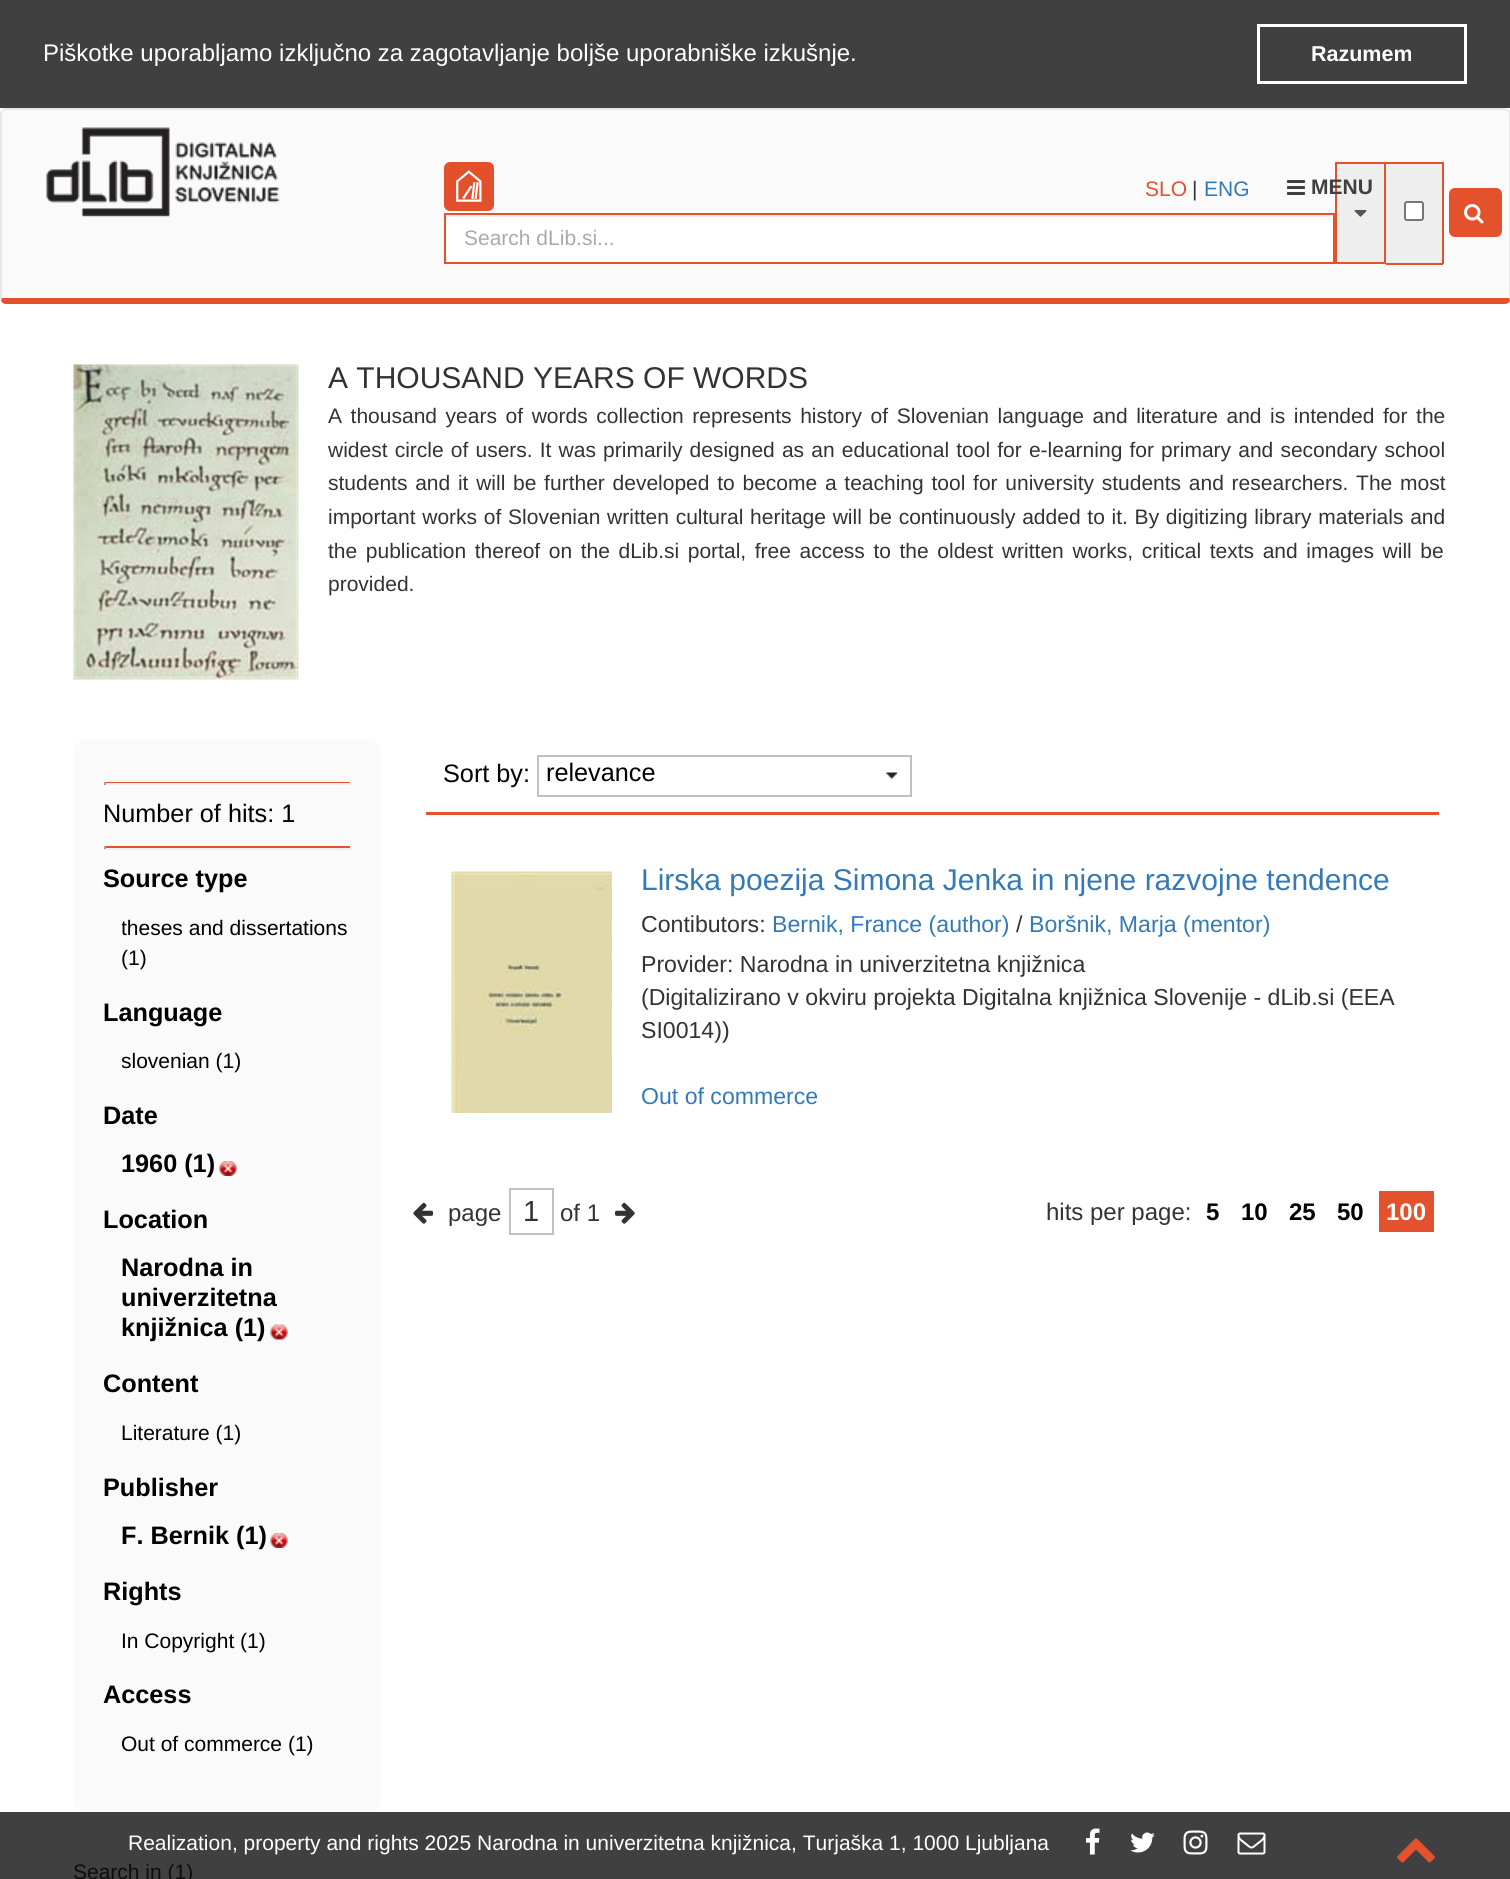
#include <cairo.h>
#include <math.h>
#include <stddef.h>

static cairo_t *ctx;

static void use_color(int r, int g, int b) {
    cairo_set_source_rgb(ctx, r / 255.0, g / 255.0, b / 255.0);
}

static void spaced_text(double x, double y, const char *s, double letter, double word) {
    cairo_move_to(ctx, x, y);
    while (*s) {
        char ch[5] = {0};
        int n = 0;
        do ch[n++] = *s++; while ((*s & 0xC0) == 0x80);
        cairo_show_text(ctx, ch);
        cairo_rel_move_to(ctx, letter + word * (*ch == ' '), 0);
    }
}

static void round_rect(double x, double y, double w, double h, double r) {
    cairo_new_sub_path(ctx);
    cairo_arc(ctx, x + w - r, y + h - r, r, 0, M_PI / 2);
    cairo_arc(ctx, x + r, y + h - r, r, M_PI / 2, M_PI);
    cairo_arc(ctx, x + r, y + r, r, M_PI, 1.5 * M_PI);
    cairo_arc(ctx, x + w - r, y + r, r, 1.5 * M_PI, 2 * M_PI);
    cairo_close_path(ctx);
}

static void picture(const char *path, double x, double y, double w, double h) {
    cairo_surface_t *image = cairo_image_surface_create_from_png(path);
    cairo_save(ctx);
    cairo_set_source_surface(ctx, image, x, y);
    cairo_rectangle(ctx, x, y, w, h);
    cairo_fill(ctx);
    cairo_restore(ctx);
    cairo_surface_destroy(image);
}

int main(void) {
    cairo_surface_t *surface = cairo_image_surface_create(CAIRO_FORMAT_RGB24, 1510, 1879);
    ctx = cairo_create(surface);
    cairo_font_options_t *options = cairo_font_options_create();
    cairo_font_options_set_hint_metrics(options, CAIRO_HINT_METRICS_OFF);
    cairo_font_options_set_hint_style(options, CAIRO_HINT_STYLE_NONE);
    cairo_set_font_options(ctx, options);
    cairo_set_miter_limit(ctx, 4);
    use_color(255, 255, 255);
    cairo_paint(ctx);
    use_color(64, 64, 64);
    cairo_rectangle(ctx, 0, 1812, 1510, 67);
    cairo_fill(ctx);
    cairo_rectangle(ctx, 0, 0, 1510, 108);
    cairo_fill(ctx);
    cairo_select_font_face(ctx, "Liberation Sans", CAIRO_FONT_SLANT_NORMAL, CAIRO_FONT_WEIGHT_NORMAL);
    cairo_set_font_size(ctx, 24);
    use_color(255, 255, 255);
    cairo_move_to(ctx, 43, 61);
    cairo_show_text(ctx, "Piškotke uporabljamo izključno za zagotavljanje boljše uporabniške izkušnje.");
    cairo_rectangle(ctx, 1258.5, 25.5, 207, 57);
    cairo_set_line_width(ctx, 3);
    cairo_stroke(ctx);
    cairo_select_font_face(ctx, "Liberation Sans", CAIRO_FONT_SLANT_NORMAL, CAIRO_FONT_WEIGHT_BOLD);
    cairo_set_font_size(ctx, 21.5);
    cairo_move_to(ctx, 1311, 61);
    cairo_show_text(ctx, "Razumem");
    use_color(250, 250, 250);
    cairo_new_path(ctx);
    cairo_move_to(ctx, 6, 110);
    cairo_line_to(ctx, 1504, 110);
    cairo_curve_to(ctx, 1507, 110, 1509, 112, 1509, 114);
    cairo_line_to(ctx, 1509, 298);
    cairo_line_to(ctx, 2, 298);
    cairo_line_to(ctx, 2, 114);
    cairo_curve_to(ctx, 2, 112, 4, 110, 6, 110);
    cairo_close_path(ctx);
    cairo_fill(ctx);
    use_color(231, 231, 231);
    cairo_new_path(ctx);
    cairo_move_to(ctx, 6, 108);
    cairo_curve_to(ctx, 4, 108, 3, 109, 2, 110);
    cairo_line_to(ctx, 3, 111);
    cairo_line_to(ctx, 6, 110);
    cairo_line_to(ctx, 1504, 110);
    cairo_line_to(ctx, 1507, 111);
    cairo_line_to(ctx, 1509, 110);
    cairo_curve_to(ctx, 1508, 109, 1506, 108, 1504, 108);
    cairo_close_path(ctx);
    cairo_fill(ctx);
    cairo_new_path(ctx);
    cairo_move_to(ctx, 1509, 110);
    cairo_curve_to(ctx, 1510, 111, 1510, 113, 1510, 114);
    cairo_line_to(ctx, 1510, 298);
    cairo_line_to(ctx, 1510, 301);
    cairo_line_to(ctx, 1509, 298);
    cairo_line_to(ctx, 1509, 114);
    cairo_curve_to(ctx, 1509, 113, 1508, 112, 1507, 111);
    cairo_close_path(ctx);
    cairo_fill(ctx);
    use_color(227, 81, 45);
    cairo_new_path(ctx);
    cairo_move_to(ctx, 1510, 301);
    cairo_curve_to(ctx, 1509, 303, 1507, 304, 1504, 304);
    cairo_line_to(ctx, 6, 304);
    cairo_curve_to(ctx, 4, 304, 2, 303, 1, 301);
    cairo_line_to(ctx, 2, 296);
    cairo_line_to(ctx, 2, 298);
    cairo_line_to(ctx, 1509, 298);
    cairo_close_path(ctx);
    cairo_fill(ctx);
    use_color(231, 231, 231);
    cairo_new_path(ctx);
    cairo_move_to(ctx, 0, 114);
    cairo_line_to(ctx, 0, 298);
    cairo_line_to(ctx, 1, 301);
    cairo_line_to(ctx, 2, 296);
    cairo_line_to(ctx, 2, 114);
    cairo_curve_to(ctx, 2, 113, 2, 112, 3, 111);
    cairo_line_to(ctx, 2, 110);
    cairo_curve_to(ctx, 1, 111, 0, 112, 0, 114);
    cairo_close_path(ctx);
    cairo_fill(ctx);
    picture("img1.png", 46, 127, 234, 90);
    cairo_select_font_face(ctx, "Liberation Sans", CAIRO_FONT_SLANT_NORMAL, CAIRO_FONT_WEIGHT_NORMAL);
    cairo_set_font_size(ctx, 21);
    use_color(227, 81, 45);
    cairo_move_to(ctx, 1145, 196);
    cairo_show_text(ctx, "SLO");
    use_color(51, 51, 51);
    cairo_move_to(ctx, 1192, 196);
    cairo_show_text(ctx, "|");
    use_color(51, 122, 183);
    cairo_move_to(ctx, 1204, 196);
    cairo_show_text(ctx, "ENG");
    picture("img2.png", 1287, 180, 18, 15);
    use_color(238, 238, 238);
    cairo_rectangle(ctx, 1336, 163, 49, 100);
    cairo_fill_preserve(ctx);
    use_color(227, 81, 45);
    cairo_set_line_width(ctx, 2);
    cairo_stroke(ctx);
    cairo_select_font_face(ctx, "Liberation Sans", CAIRO_FONT_SLANT_NORMAL, CAIRO_FONT_WEIGHT_BOLD);
    use_color(64, 64, 64);
    cairo_move_to(ctx, 1311, 194);
    cairo_show_text(ctx, "MENU");
    picture("img3.png", 444, 162, 50, 49);
    picture("img4.png", 1354, 210, 13, 7);
    use_color(238, 238, 238);
    cairo_rectangle(ctx, 1386, 164, 56, 99);
    cairo_fill(ctx);
    use_color(227, 81, 45);
    cairo_rectangle(ctx, 1386, 162, 57, 2);
    cairo_fill(ctx);
    cairo_rectangle(ctx, 1442, 162, 2, 102);
    cairo_fill(ctx);
    cairo_rectangle(ctx, 1386, 263, 57, 2);
    cairo_fill(ctx);
    use_color(255, 255, 255);
    round_rect(1405, 202, 18, 18, 2);
    cairo_fill_preserve(ctx);
    use_color(118, 118, 118);
    cairo_stroke(ctx);
    use_color(255, 255, 255);
    cairo_rectangle(ctx, 446, 217, 887, 45);
    cairo_fill(ctx);
    use_color(236, 236, 236);
    cairo_rectangle(ctx, 446, 215, 888, 2);
    cairo_fill(ctx);
    cairo_rectangle(ctx, 445, 214, 889, 49);
    use_color(227, 81, 45);
    cairo_stroke(ctx);
    cairo_select_font_face(ctx, "Liberation Sans", CAIRO_FONT_SLANT_NORMAL, CAIRO_FONT_WEIGHT_NORMAL);
    use_color(170, 170, 170);
    cairo_move_to(ctx, 464, 245);
    cairo_show_text(ctx, "Search dLib.si...");
    use_color(227, 81, 45);
    round_rect(1449, 188, 53, 49, 6);
    cairo_fill(ctx);
    picture("img5.png", 1464, 204, 20, 20);
    picture("img6.png", 73, 364, 226, 316);
    cairo_set_font_size(ctx, 30);
    use_color(51, 51, 51);
    cairo_move_to(ctx, 328, 388);
    cairo_show_text(ctx, "A THOUSAND YEARS OF WORDS");
    cairo_set_font_size(ctx, 21);
    spaced_text(328, 423, "A thousand years of words collection represents history of Slovenian language and literature and is intended for the", 0, 2.75);
    spaced_text(328, 457, "widest circle of users. It was primarily designed as an educational tool for e-learning for primary and secondary school", 0, 1.3);
    spaced_text(328, 490, "students and it will be further developed to become a teaching tool for university students and researchers. The most", 0, 1.9);
    spaced_text(328, 524, "important works of Slovenian written cultural heritage will be continuously added to it. By digitizing library materials and", 0, 0.9);
    spaced_text(328, 558, "the publication thereof on the dLib.si portal, free access to the oldest written works, critical texts and images will be", 0, 2.75);
    cairo_move_to(ctx, 328, 591);
    cairo_show_text(ctx, "provided.");
    use_color(250, 250, 250);
    round_rect(74, 740, 307, 1072, 12);
    cairo_fill(ctx);
    use_color(227, 81, 45);
    cairo_rectangle(ctx, 104, 782, 247, 1);
    cairo_fill(ctx);
    use_color(238, 238, 238);
    cairo_rectangle(ctx, 350, 782, 2, 3);
    cairo_fill(ctx);
    cairo_rectangle(ctx, 104, 783, 247, 2);
    cairo_fill(ctx);
    use_color(159, 159, 159);
    cairo_rectangle(ctx, 104, 782, 2, 3);
    cairo_fill(ctx);
    cairo_set_font_size(ctx, 25.25);
    use_color(0, 0, 0);
    cairo_move_to(ctx, 103, 822);
    cairo_show_text(ctx, "Number of hits: 1");
    use_color(227, 81, 45);
    cairo_rectangle(ctx, 104, 846, 247, 2);
    cairo_fill(ctx);
    use_color(238, 238, 238);
    cairo_rectangle(ctx, 350, 846, 2, 3);
    cairo_fill(ctx);
    cairo_rectangle(ctx, 104, 848, 247, 2);
    cairo_fill(ctx);
    use_color(159, 159, 159);
    cairo_rectangle(ctx, 104, 846, 2, 3);
    cairo_fill(ctx);
    cairo_select_font_face(ctx, "Liberation Sans", CAIRO_FONT_SLANT_NORMAL, CAIRO_FONT_WEIGHT_BOLD);
    use_color(0, 0, 0);
    cairo_move_to(ctx, 103, 887);
    cairo_show_text(ctx, "Source type");
    cairo_save(ctx);
    cairo_rectangle(ctx, 122, 912, 229, 60);
    cairo_clip(ctx);
    cairo_select_font_face(ctx, "Liberation Sans", CAIRO_FONT_SLANT_NORMAL, CAIRO_FONT_WEIGHT_NORMAL);
    cairo_set_font_size(ctx, 21);
    cairo_move_to(ctx, 121, 935);
    cairo_show_text(ctx, "theses and dissertations");
    cairo_restore(ctx);
    cairo_select_font_face(ctx, "Liberation Sans", CAIRO_FONT_SLANT_NORMAL, CAIRO_FONT_WEIGHT_NORMAL);
    cairo_set_font_size(ctx, 21);
    cairo_move_to(ctx, 121, 965);
    cairo_show_text(ctx, "(1)");
    cairo_select_font_face(ctx, "Liberation Sans", CAIRO_FONT_SLANT_NORMAL, CAIRO_FONT_WEIGHT_BOLD);
    cairo_set_font_size(ctx, 25.25);
    cairo_move_to(ctx, 103, 1021);
    cairo_show_text(ctx, "Language");
    cairo_save(ctx);
    cairo_rectangle(ctx, 122, 1046, 229, 30);
    cairo_clip(ctx);
    cairo_select_font_face(ctx, "Liberation Sans", CAIRO_FONT_SLANT_NORMAL, CAIRO_FONT_WEIGHT_NORMAL);
    cairo_set_font_size(ctx, 21);
    cairo_move_to(ctx, 121, 1068);
    cairo_show_text(ctx, "slovenian (1)");
    cairo_restore(ctx);
    cairo_move_to(ctx, 103, 1124);
    cairo_show_text(ctx, "Date");
    cairo_move_to(ctx, 121, 1172);
    cairo_show_text(ctx, "1960 (1)");
    picture("img7.png", 219, 1161, 18, 15);
    cairo_move_to(ctx, 103, 1228);
    cairo_show_text(ctx, "Location");
    cairo_move_to(ctx, 121, 1276);
    cairo_show_text(ctx, "Narodna in");
    cairo_move_to(ctx, 121, 1306);
    cairo_show_text(ctx, "univerzitetna");
    cairo_move_to(ctx, 121, 1336);
    cairo_show_text(ctx, "knjižnica (1)");
    picture("img8.png", 270, 1324, 18, 16);
    cairo_move_to(ctx, 103, 1392);
    cairo_show_text(ctx, "Content");
    cairo_select_font_face(ctx, "Liberation Sans", CAIRO_FONT_SLANT_NORMAL, CAIRO_FONT_WEIGHT_NORMAL);
    cairo_set_font_size(ctx, 21);
    cairo_move_to(ctx, 121, 1440);
    cairo_show_text(ctx, "Literature (1)");
    cairo_select_font_face(ctx, "Liberation Sans", CAIRO_FONT_SLANT_NORMAL, CAIRO_FONT_WEIGHT_BOLD);
    cairo_set_font_size(ctx, 25.25);
    cairo_move_to(ctx, 103, 1496);
    cairo_show_text(ctx, "Publisher");
    cairo_move_to(ctx, 121, 1544);
    cairo_show_text(ctx, "F. Bernik (1)");
    picture("img9.png", 270, 1533, 18, 15);
    cairo_move_to(ctx, 103, 1600);
    cairo_show_text(ctx, "Rights");
    cairo_select_font_face(ctx, "Liberation Sans", CAIRO_FONT_SLANT_NORMAL, CAIRO_FONT_WEIGHT_NORMAL);
    cairo_set_font_size(ctx, 21);
    cairo_move_to(ctx, 121, 1648);
    cairo_show_text(ctx, "In Copyright (1)");
    cairo_select_font_face(ctx, "Liberation Sans", CAIRO_FONT_SLANT_NORMAL, CAIRO_FONT_WEIGHT_BOLD);
    cairo_set_font_size(ctx, 25.25);
    cairo_move_to(ctx, 103, 1703);
    cairo_show_text(ctx, "Access");
    cairo_save(ctx);
    cairo_rectangle(ctx, 122, 1728, 229, 32);
    cairo_clip(ctx);
    cairo_select_font_face(ctx, "Liberation Sans", CAIRO_FONT_SLANT_NORMAL, CAIRO_FONT_WEIGHT_NORMAL);
    cairo_set_font_size(ctx, 21);
    cairo_move_to(ctx, 121, 1751);
    cairo_show_text(ctx, "Out of commerce (1)");
    cairo_restore(ctx);
    cairo_select_font_face(ctx, "Liberation Sans", CAIRO_FONT_SLANT_NORMAL, CAIRO_FONT_WEIGHT_NORMAL);
    cairo_set_font_size(ctx, 21);
    use_color(13, 13, 13);
    cairo_move_to(ctx, 73, 1879);
    cairo_show_text(ctx, "Search in (1)");
    use_color(227, 81, 45);
    cairo_rectangle(ctx, 426, 812, 1013, 3);
    cairo_fill(ctx);
    cairo_set_font_size(ctx, 25.25);
    use_color(0, 0, 0);
    cairo_move_to(ctx, 443, 782);
    cairo_show_text(ctx, "Sort by:");
    cairo_rectangle(ctx, 538, 756, 373, 40);
    use_color(192, 192, 192);
    cairo_stroke(ctx);
    use_color(0, 0, 0);
    cairo_move_to(ctx, 546, 781);
    cairo_show_text(ctx, "relevance");
    picture("img10.png", 886, 772, 12, 7);
    picture("img11.png", 451, 871, 161, 242);
    cairo_set_font_size(ctx, 30);
    use_color(51, 122, 183);
    cairo_move_to(ctx, 641, 890);
    cairo_show_text(ctx, "Lirska poezija Simona Jenka in njene razvojne tendence");
    cairo_set_font_size(ctx, 23.1);
    use_color(51, 51, 51);
    cairo_move_to(ctx, 641, 932);
    cairo_show_text(ctx, "Contibutors:");
    use_color(51, 122, 183);
    cairo_move_to(ctx, 772, 932);
    cairo_show_text(ctx, "Bernik, France (author)");
    use_color(51, 51, 51);
    cairo_move_to(ctx, 1016, 932);
    cairo_show_text(ctx, "/");
    use_color(51, 122, 183);
    cairo_move_to(ctx, 1029, 932);
    cairo_show_text(ctx, "Boršnik, Marja (mentor)");
    use_color(51, 51, 51);
    cairo_move_to(ctx, 641, 972);
    cairo_show_text(ctx, "Provider: Narodna in univerzitetna knjižnica");
    cairo_move_to(ctx, 641, 1005);
    cairo_show_text(ctx, "(Digitalizirano v okviru projekta Digitalna knjižnica Slovenije - dLib.si (EEA");
    cairo_move_to(ctx, 641, 1038);
    cairo_show_text(ctx, "SI0014))");
    use_color(51, 122, 183);
    cairo_move_to(ctx, 641, 1104);
    cairo_show_text(ctx, "Out of commerce");
    picture("img12.png", 413, 1202, 21, 22);
    cairo_set_font_size(ctx, 24);
    use_color(51, 51, 51);
    cairo_move_to(ctx, 448, 1221);
    cairo_show_text(ctx, "page");
    cairo_rectangle(ctx, 510, 1189, 43, 45);
    use_color(192, 192, 192);
    cairo_stroke(ctx);
    cairo_set_font_size(ctx, 29);
    use_color(51, 51, 51);
    cairo_move_to(ctx, 523, 1221);
    cairo_show_text(ctx, "1");
    cairo_set_font_size(ctx, 24);
    cairo_move_to(ctx, 560, 1221);
    cairo_show_text(ctx, "of 1");
    picture("img13.png", 615, 1202, 20, 22);
    cairo_move_to(ctx, 1046, 1220);
    cairo_show_text(ctx, "hits per page:");
    cairo_select_font_face(ctx, "Liberation Sans", CAIRO_FONT_SLANT_NORMAL, CAIRO_FONT_WEIGHT_BOLD);
    use_color(0, 0, 0);
    cairo_move_to(ctx, 1206, 1220);
    cairo_show_text(ctx, "5");
    cairo_move_to(ctx, 1241, 1220);
    cairo_show_text(ctx, "10");
    cairo_move_to(ctx, 1289, 1220);
    cairo_show_text(ctx, "25");
    cairo_move_to(ctx, 1337, 1220);
    cairo_show_text(ctx, "50");
    use_color(227, 81, 45);
    cairo_rectangle(ctx, 1379, 1191, 55, 41);
    cairo_fill(ctx);
    use_color(255, 255, 255);
    cairo_move_to(ctx, 1386, 1220);
    cairo_show_text(ctx, "100");
    cairo_select_font_face(ctx, "Liberation Sans", CAIRO_FONT_SLANT_NORMAL, CAIRO_FONT_WEIGHT_NORMAL);
    cairo_set_font_size(ctx, 21);
    cairo_move_to(ctx, 128, 1850);
    cairo_show_text(ctx, "Realization, property and rights 2025 Narodna in univerzitetna knjižnica, Turjaška 1, 1000 Ljubljana");
    picture("img14.png", 1086, 1828, 14, 27);
    picture("img15.png", 1130, 1832, 25, 21);
    picture("img16.png", 1183, 1830, 25, 25);
    picture("img17.png", 1237, 1832, 29, 23);
    picture("img18.png", 1397, 1838, 38, 25);
    cairo_surface_write_to_png(surface, "result.png");
    cairo_font_options_destroy(options);
    cairo_destroy(ctx);
    cairo_surface_destroy(surface);
    return 0;
}
